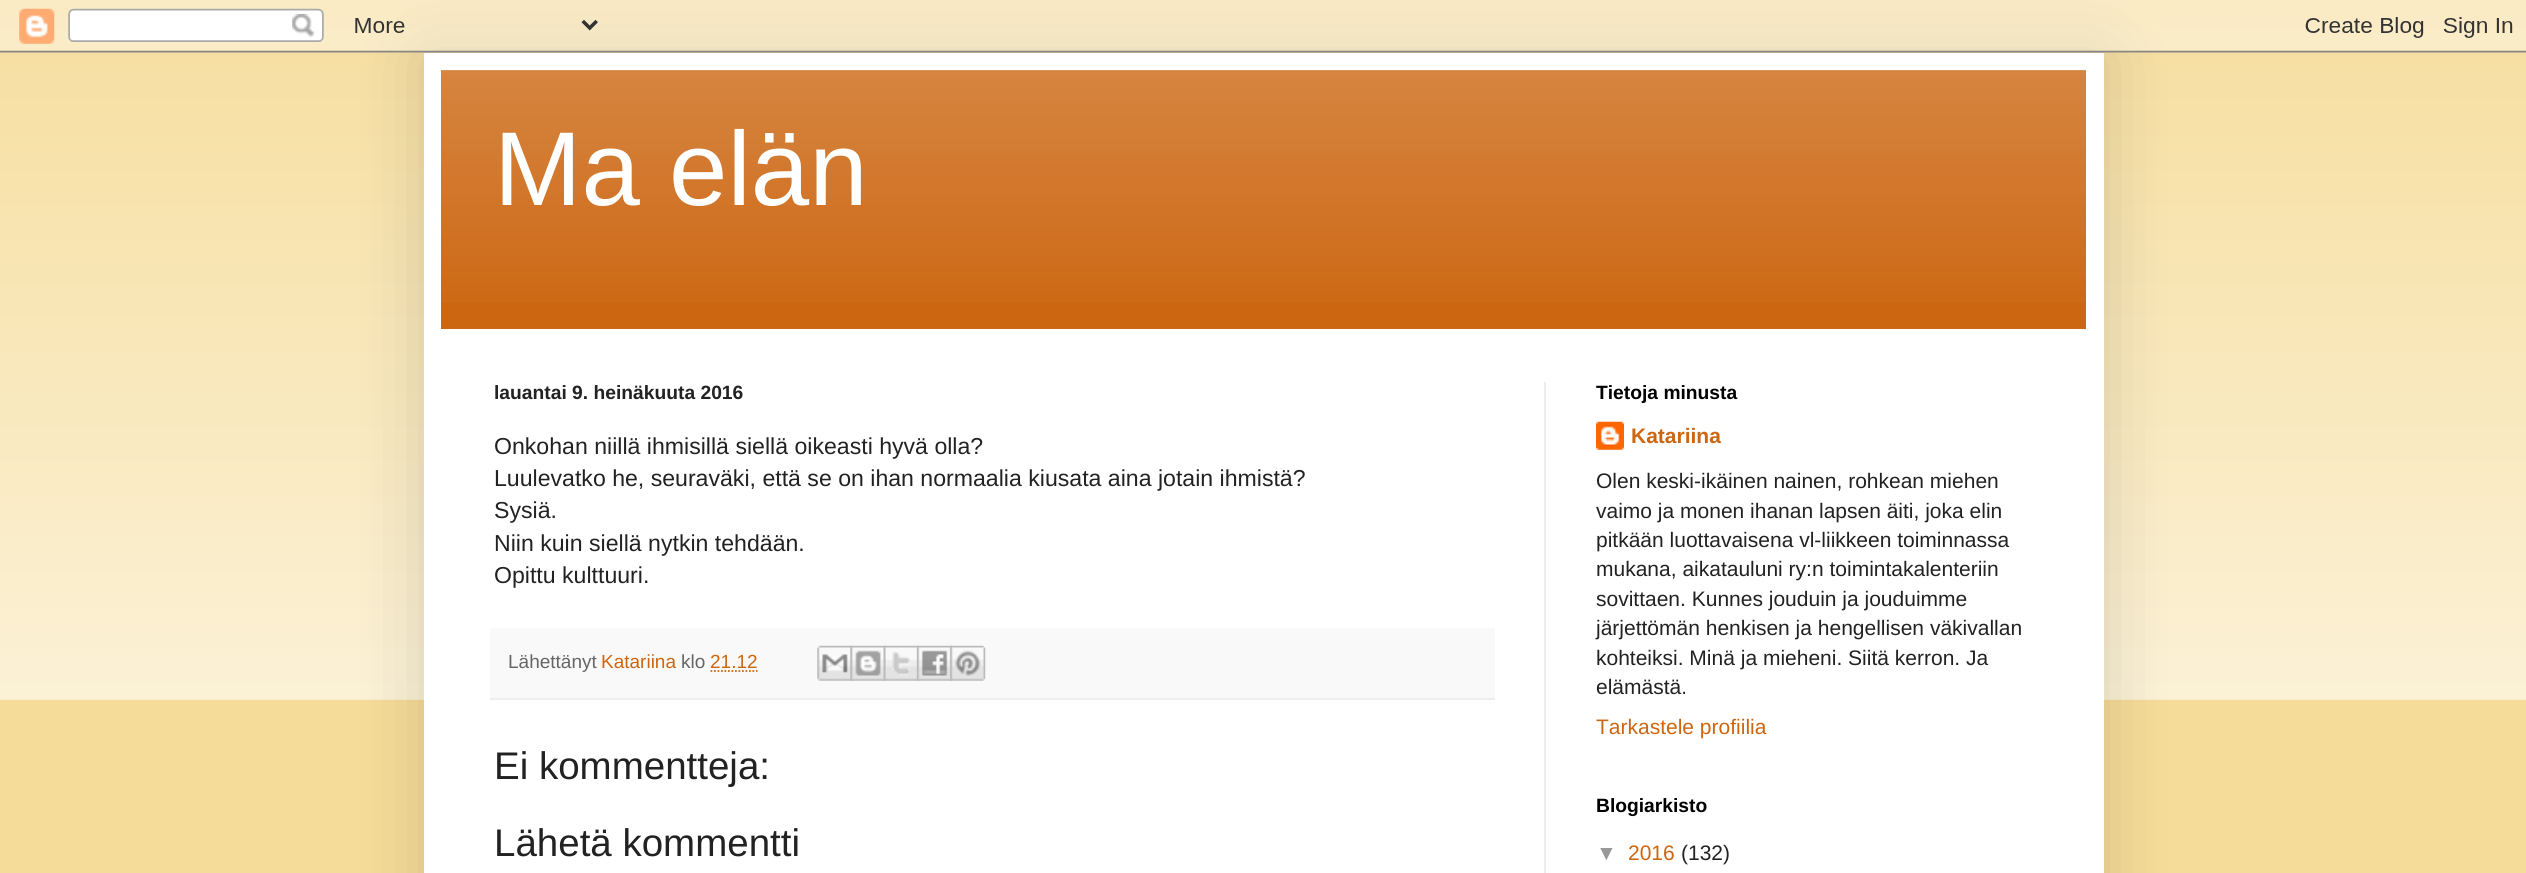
#include <cairo.h>
#include <math.h>
#include <stddef.h>

static cairo_t *ctx;

static void use_color(int r, int g, int b) {
    cairo_set_source_rgb(ctx, r / 255.0, g / 255.0, b / 255.0);
}

static void round_rect(double x, double y, double w, double h, double r) {
    cairo_new_sub_path(ctx);
    cairo_arc(ctx, x + w - r, y + h - r, r, 0, M_PI / 2);
    cairo_arc(ctx, x + r, y + h - r, r, M_PI / 2, M_PI);
    cairo_arc(ctx, x + r, y + r, r, M_PI, 1.5 * M_PI);
    cairo_arc(ctx, x + w - r, y + r, r, 1.5 * M_PI, 2 * M_PI);
    cairo_close_path(ctx);
}

static void shadow(double x, double y, double w, double h, double r, double blur, double alpha) {
    cairo_push_group_with_content(ctx, CAIRO_CONTENT_ALPHA);
    cairo_set_operator(ctx, CAIRO_OPERATOR_SOURCE);
    for (int i = 15; i >= -15 && fmin(w, h) + blur * i / 3 > 0; i -= 2) {
        double e = blur * i / 6;
        cairo_set_source_rgba(ctx, 0, 0, 0, alpha * erfc((i - 1) / 8.5) / 2);
        round_rect(x - e, y - e, w + 2 * e, h + 2 * e, fmax(0, fmin(r + e + blur * .6, fmin(w, h) / 2 + e)));
        cairo_fill(ctx);
    }
    cairo_pattern_t *soft = cairo_pop_group(ctx);
    cairo_mask(ctx, soft);
    cairo_pattern_destroy(soft);
}

static void picture(const char *path, double x, double y, double w, double h) {
    cairo_surface_t *image = cairo_image_surface_create_from_png(path);
    cairo_save(ctx);
    cairo_set_source_surface(ctx, image, x, y);
    cairo_rectangle(ctx, x, y, w, h);
    cairo_fill(ctx);
    cairo_restore(ctx);
    cairo_surface_destroy(image);
}

int main(void) {
    cairo_surface_t *surface = cairo_image_surface_create(CAIRO_FORMAT_RGB24, 2526, 873);
    ctx = cairo_create(surface);
    cairo_font_options_t *options = cairo_font_options_create();
    cairo_font_options_set_hint_metrics(options, CAIRO_HINT_METRICS_OFF);
    cairo_font_options_set_hint_style(options, CAIRO_HINT_STYLE_NONE);
    cairo_set_font_options(ctx, options);
    cairo_set_miter_limit(ctx, 4);
    use_color(246, 220, 153);
    cairo_paint(ctx);
    picture("img1.png", 0, 0, 2526, 700);
    use_color(0, 0, 0);
    shadow(424, 53, 1680, 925, 0, 35, 0.15);
    picture("img2.png", 0, 0, 2526, 53);
    use_color(255, 255, 255);
    cairo_rectangle(ctx, 424, 53, 1680, 820);
    cairo_fill(ctx);
    use_color(204, 102, 17);
    cairo_rectangle(ctx, 441, 70, 1645, 259);
    cairo_fill(ctx);
    picture("img3.png", 441, 70, 1645, 233);
    cairo_select_font_face(ctx, "Liberation Sans", CAIRO_FONT_SLANT_NORMAL, CAIRO_FONT_WEIGHT_NORMAL);
    cairo_set_font_size(ctx, 105);
    use_color(255, 255, 255);
    cairo_move_to(ctx, 494, 205);
    cairo_show_text(ctx, "Ma elän");
    use_color(238, 238, 238);
    cairo_rectangle(ctx, 1544, 382, 2, 491);
    cairo_fill(ctx);
    cairo_select_font_face(ctx, "Liberation Sans", CAIRO_FONT_SLANT_NORMAL, CAIRO_FONT_WEIGHT_BOLD);
    cairo_set_font_size(ctx, 19.25);
    use_color(34, 34, 34);
    cairo_move_to(ctx, 494, 399);
    cairo_show_text(ctx, "lauantai 9. heinäkuuta 2016");
    cairo_select_font_face(ctx, "Liberation Sans", CAIRO_FONT_SLANT_NORMAL, CAIRO_FONT_WEIGHT_NORMAL);
    cairo_set_font_size(ctx, 23.1);
    cairo_move_to(ctx, 494, 454);
    cairo_show_text(ctx, "Onkohan niillä ihmisillä siellä oikeasti hyvä olla?");
    cairo_move_to(ctx, 494, 486);
    cairo_show_text(ctx, "Luulevatko he, seuraväki, että se on ihan normaalia kiusata aina jotain ihmistä?");
    cairo_move_to(ctx, 494, 518);
    cairo_show_text(ctx, "Sysiä.");
    cairo_move_to(ctx, 494, 551);
    cairo_show_text(ctx, "Niin kuin siellä nytkin tehdään.");
    cairo_move_to(ctx, 494, 583);
    cairo_show_text(ctx, "Opittu kulttuuri.");
    use_color(249, 249, 249);
    cairo_rectangle(ctx, 490, 628, 1005, 70);
    cairo_fill(ctx);
    use_color(238, 238, 238);
    cairo_rectangle(ctx, 490, 698, 1005, 2);
    cairo_fill(ctx);
    cairo_set_font_size(ctx, 19);
    use_color(102, 102, 102);
    cairo_move_to(ctx, 508, 668);
    cairo_show_text(ctx, "Lähettänyt");
    use_color(204, 102, 17);
    cairo_move_to(ctx, 601, 668);
    cairo_show_text(ctx, "Katariina");
    use_color(102, 102, 102);
    cairo_move_to(ctx, 681, 668);
    cairo_show_text(ctx, "klo");
    use_color(204, 102, 17);
    cairo_move_to(ctx, 710, 668);
    cairo_show_text(ctx, "21.12");
    cairo_new_path(ctx);
    cairo_move_to(ctx, 710.5, 671);
    cairo_line_to(ctx, 757.5, 671);
    cairo_set_line_width(ctx, 1.8);
    cairo_set_dash(ctx, (double[]){1.75, 1.75}, 2, 0);
    cairo_stroke(ctx);
    picture("img4.png", 817, 645, 36, 36);
    picture("img5.png", 850, 645, 36, 36);
    picture("img6.png", 883, 645, 36, 36);
    picture("img7.png", 917, 645, 35, 36);
    picture("img8.png", 950, 645, 36, 36);
    cairo_set_font_size(ctx, 38.5);
    use_color(34, 34, 34);
    cairo_move_to(ctx, 494, 779);
    cairo_show_text(ctx, "Ei kommentteja:");
    cairo_move_to(ctx, 494, 856);
    cairo_show_text(ctx, "Lähetä kommentti");
    cairo_select_font_face(ctx, "Liberation Sans", CAIRO_FONT_SLANT_NORMAL, CAIRO_FONT_WEIGHT_BOLD);
    cairo_set_font_size(ctx, 19.25);
    use_color(0, 0, 0);
    cairo_move_to(ctx, 1596, 399);
    cairo_show_text(ctx, "Tietoja minusta");
    picture("img9.png", 1596, 421, 28, 29);
    cairo_set_font_size(ctx, 21);
    use_color(204, 102, 17);
    cairo_move_to(ctx, 1631, 443);
    cairo_show_text(ctx, "Katariina");
    cairo_select_font_face(ctx, "Liberation Sans", CAIRO_FONT_SLANT_NORMAL, CAIRO_FONT_WEIGHT_NORMAL);
    use_color(34, 34, 34);
    cairo_move_to(ctx, 1596, 488);
    cairo_show_text(ctx, "Olen keski-ikäinen nainen, rohkean miehen");
    cairo_move_to(ctx, 1596, 518);
    cairo_show_text(ctx, "vaimo ja monen ihanan lapsen äiti, joka elin");
    cairo_move_to(ctx, 1596, 547);
    cairo_show_text(ctx, "pitkään luottavaisena vl-liikkeen toiminnassa");
    cairo_move_to(ctx, 1596, 576);
    cairo_show_text(ctx, "mukana, aikatauluni ry:n toimintakalenteriin");
    cairo_move_to(ctx, 1596, 606);
    cairo_show_text(ctx, "sovittaen. Kunnes jouduin ja jouduimme");
    cairo_move_to(ctx, 1596, 635);
    cairo_show_text(ctx, "järjettömän henkisen ja hengellisen väkivallan");
    cairo_move_to(ctx, 1596, 665);
    cairo_show_text(ctx, "kohteiksi. Minä ja mieheni. Siitä kerron. Ja");
    cairo_move_to(ctx, 1596, 694);
    cairo_show_text(ctx, "elämästä.");
    use_color(204, 102, 17);
    cairo_move_to(ctx, 1596, 734);
    cairo_show_text(ctx, "Tarkastele profiilia");
    cairo_select_font_face(ctx, "Liberation Sans", CAIRO_FONT_SLANT_NORMAL, CAIRO_FONT_WEIGHT_BOLD);
    cairo_set_font_size(ctx, 19.25);
    use_color(0, 0, 0);
    cairo_move_to(ctx, 1596, 812);
    cairo_show_text(ctx, "Blogiarkisto");
    cairo_select_font_face(ctx, "Liberation Sans", CAIRO_FONT_SLANT_NORMAL, CAIRO_FONT_WEIGHT_NORMAL);
    cairo_set_font_size(ctx, 21);
    use_color(153, 153, 153);
    cairo_move_to(ctx, 1596, 860);
    cairo_show_text(ctx, "▼");
    use_color(204, 102, 17);
    cairo_move_to(ctx, 1628, 860);
    cairo_show_text(ctx, "2016");
    use_color(34, 34, 34);
    cairo_move_to(ctx, 1681, 860);
    cairo_show_text(ctx, "(132)");
    cairo_surface_write_to_png(surface, "result.png");
    cairo_font_options_destroy(options);
    cairo_destroy(ctx);
    cairo_surface_destroy(surface);
    return 0;
}
